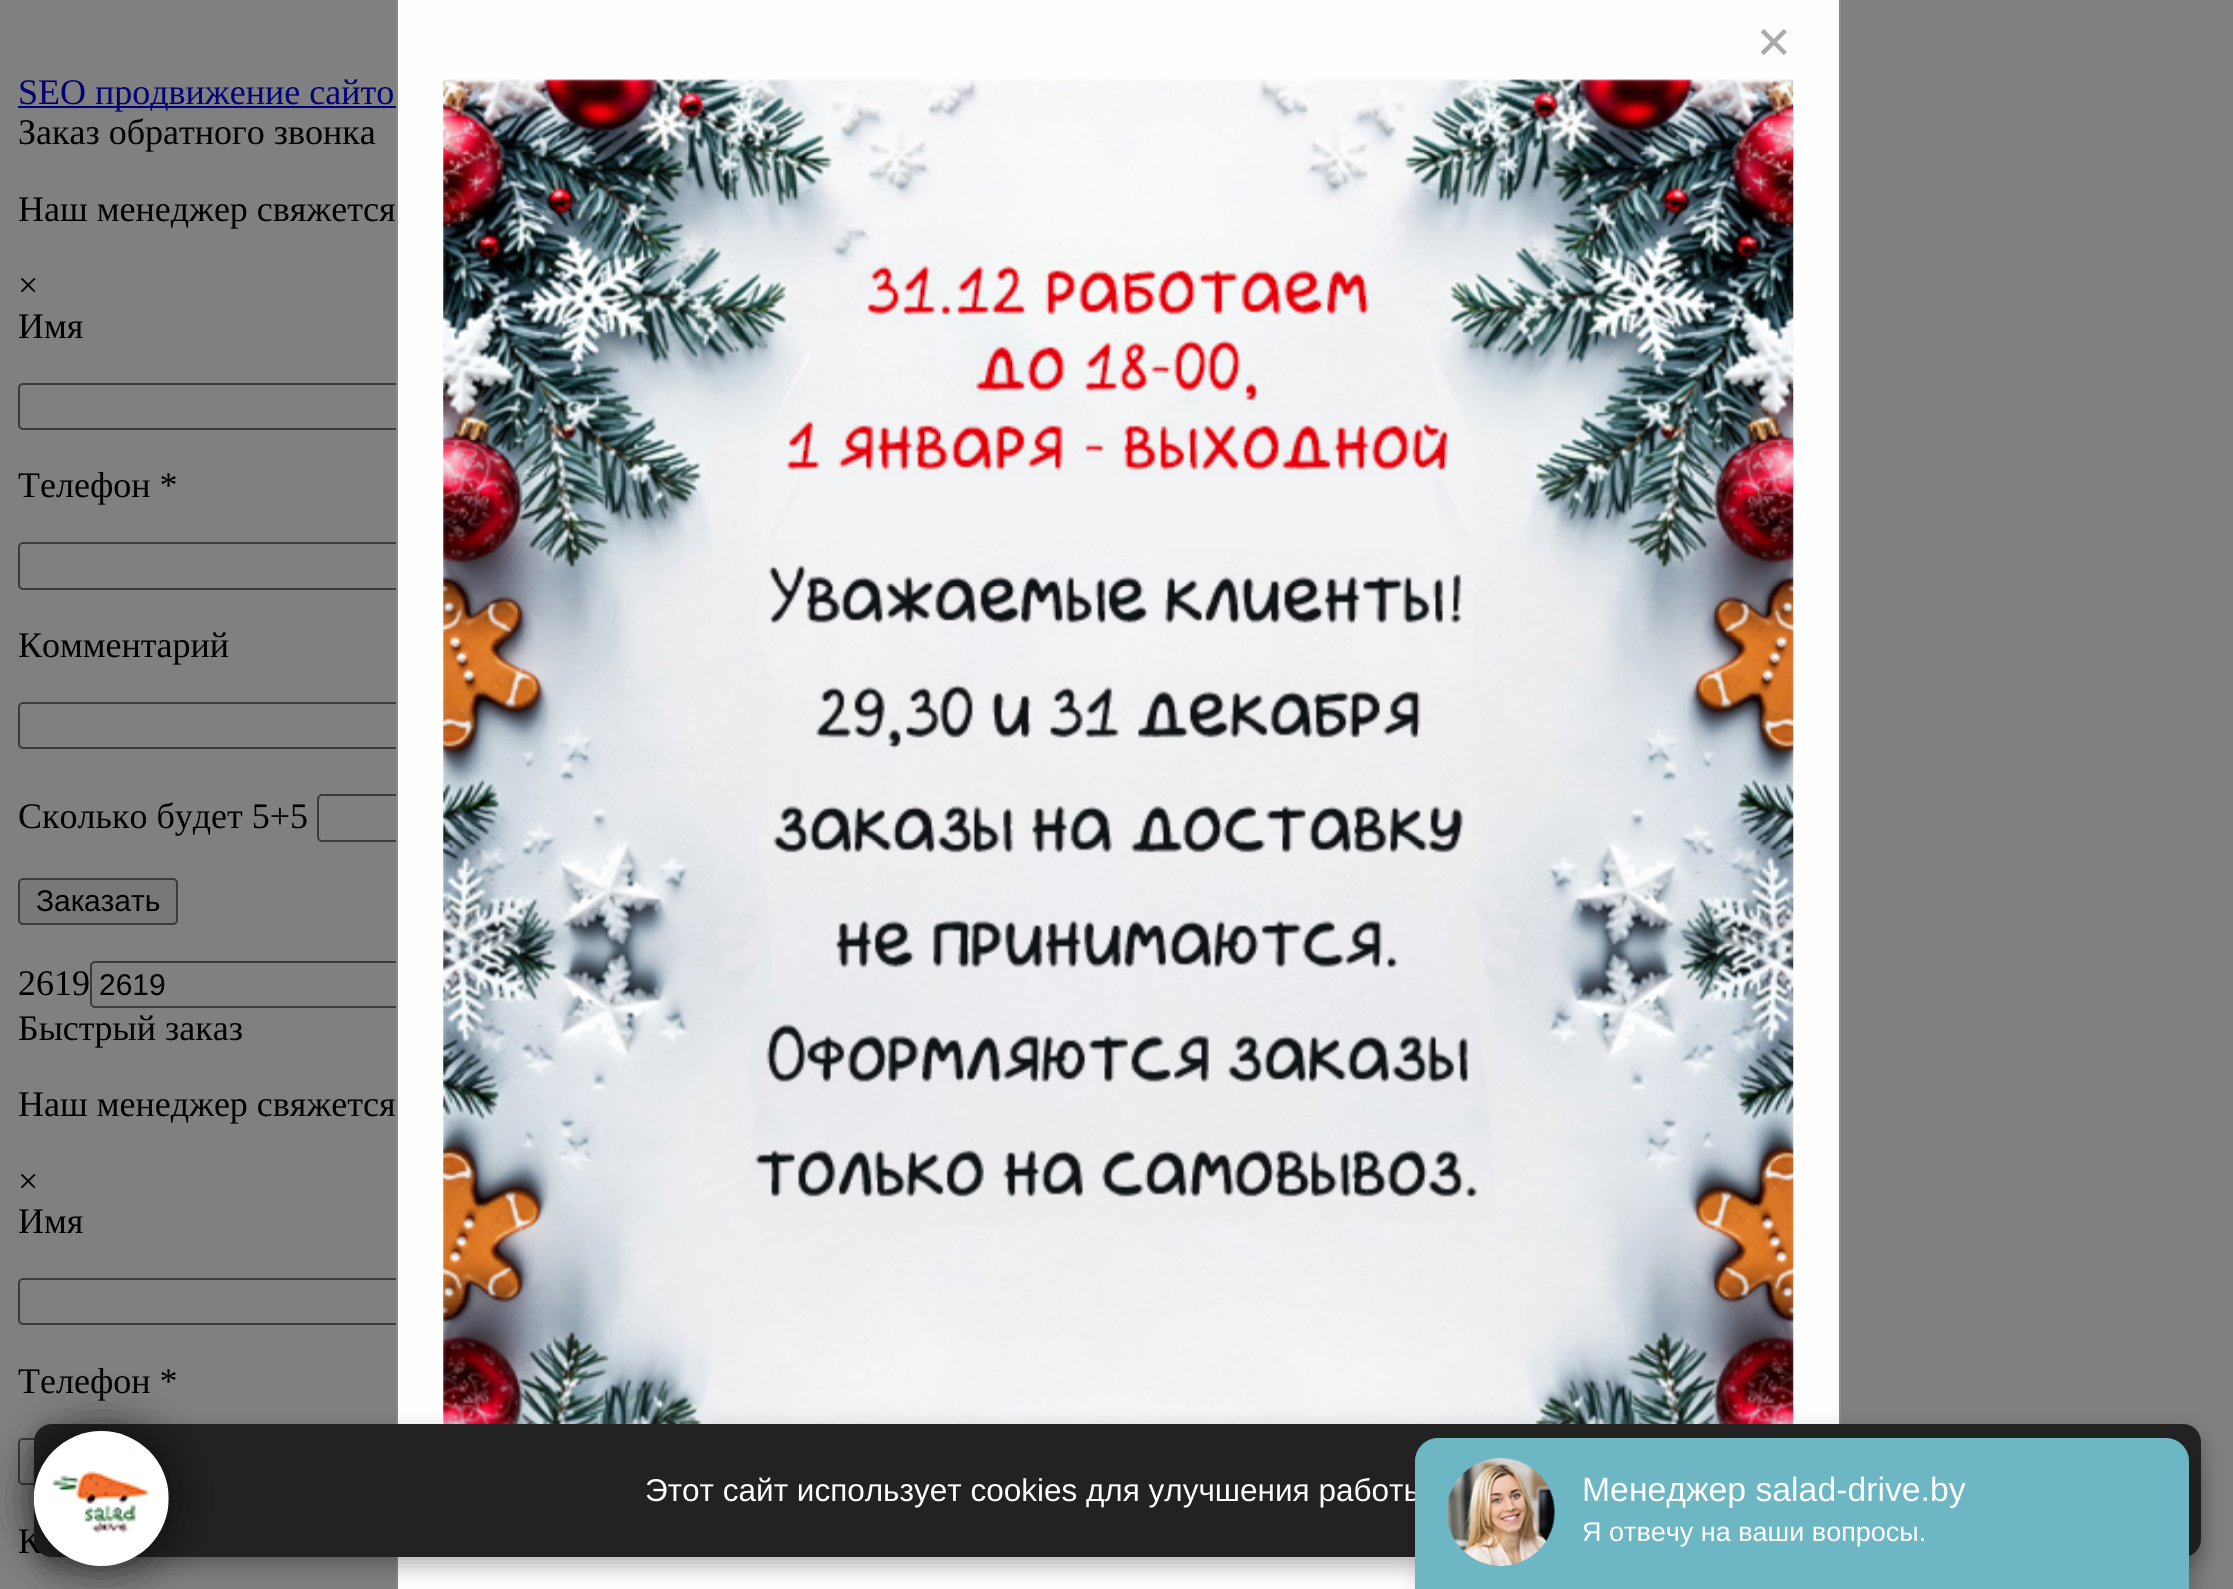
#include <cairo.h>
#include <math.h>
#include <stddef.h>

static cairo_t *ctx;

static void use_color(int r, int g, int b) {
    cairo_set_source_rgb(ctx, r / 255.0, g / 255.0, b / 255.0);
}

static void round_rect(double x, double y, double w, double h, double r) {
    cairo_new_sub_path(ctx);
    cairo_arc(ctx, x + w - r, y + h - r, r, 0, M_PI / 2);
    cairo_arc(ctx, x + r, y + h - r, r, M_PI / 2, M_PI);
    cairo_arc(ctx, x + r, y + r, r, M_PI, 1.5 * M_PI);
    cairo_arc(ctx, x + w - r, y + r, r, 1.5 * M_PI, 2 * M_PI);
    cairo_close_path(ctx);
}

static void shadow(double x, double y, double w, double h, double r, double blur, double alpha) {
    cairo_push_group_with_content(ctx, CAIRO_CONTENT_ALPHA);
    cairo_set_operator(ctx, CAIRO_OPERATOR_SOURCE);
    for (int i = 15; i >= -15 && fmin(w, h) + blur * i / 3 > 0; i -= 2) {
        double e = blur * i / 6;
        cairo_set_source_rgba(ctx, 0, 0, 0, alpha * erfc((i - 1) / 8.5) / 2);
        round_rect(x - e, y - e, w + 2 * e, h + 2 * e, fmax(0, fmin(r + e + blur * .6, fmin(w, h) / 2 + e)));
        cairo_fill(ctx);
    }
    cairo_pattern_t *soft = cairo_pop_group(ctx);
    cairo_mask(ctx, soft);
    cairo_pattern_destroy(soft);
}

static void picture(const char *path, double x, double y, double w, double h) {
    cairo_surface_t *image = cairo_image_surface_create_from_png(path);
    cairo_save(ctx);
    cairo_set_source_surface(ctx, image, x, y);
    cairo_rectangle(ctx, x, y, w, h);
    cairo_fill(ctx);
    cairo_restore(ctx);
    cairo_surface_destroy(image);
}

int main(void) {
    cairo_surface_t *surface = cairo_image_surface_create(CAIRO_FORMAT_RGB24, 2233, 1589);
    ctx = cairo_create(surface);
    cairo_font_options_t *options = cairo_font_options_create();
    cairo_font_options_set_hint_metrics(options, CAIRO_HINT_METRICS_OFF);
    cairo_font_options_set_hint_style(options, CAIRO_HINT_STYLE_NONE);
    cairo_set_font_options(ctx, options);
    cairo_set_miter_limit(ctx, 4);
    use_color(128, 128, 128);
    cairo_paint(ctx);
    round_rect(19, 384, 774, 45, 4);
    use_color(59, 59, 59);
    cairo_stroke(ctx);
    round_rect(19, 543, 774, 46, 4);
    cairo_stroke(ctx);
    round_rect(19, 703, 770, 45, 4);
    cairo_stroke(ctx);
    round_rect(318, 795, 775, 46, 4);
    cairo_stroke(ctx);
    round_rect(91, 962, 594, 45, 4);
    cairo_stroke(ctx);
    round_rect(19, 1279, 774, 45, 4);
    cairo_stroke(ctx);
    round_rect(19, 1439, 774, 45, 4);
    cairo_stroke(ctx);
    use_color(254, 254, 254);
    cairo_rectangle(ctx, 397, -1, 1443, 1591);
    cairo_fill_preserve(ctx);
    use_color(136, 136, 136);
    cairo_stroke(ctx);
    cairo_select_font_face(ctx, "Liberation Serif", CAIRO_FONT_SLANT_NORMAL, CAIRO_FONT_WEIGHT_BOLD);
    cairo_set_font_size(ctx, 63);
    use_color(170, 170, 170);
    cairo_move_to(ctx, 1756, 63);
    cairo_show_text(ctx, "×");
    picture("img1.png", 443, 79, 1351, 1345);
    use_color(0, 0, 119);
    cairo_rectangle(ctx, 18, 106, 378, 2);
    cairo_fill(ctx);
    cairo_select_font_face(ctx, "Liberation Serif", CAIRO_FONT_SLANT_NORMAL, CAIRO_FONT_WEIGHT_NORMAL);
    cairo_set_font_size(ctx, 36);
    cairo_move_to(ctx, 18, 104);
    cairo_show_text(ctx, "SEO продвижение сайто");
    use_color(0, 0, 0);
    cairo_move_to(ctx, 18, 144);
    cairo_show_text(ctx, "Заказ обратного звонка");
    cairo_move_to(ctx, 18, 221);
    cairo_show_text(ctx, "Наш менеджер свяжется");
    cairo_move_to(ctx, 18, 297);
    cairo_show_text(ctx, "×");
    cairo_move_to(ctx, 18, 338);
    cairo_show_text(ctx, "Имя");
    cairo_move_to(ctx, 18, 497);
    cairo_show_text(ctx, "Телефон *");
    cairo_move_to(ctx, 18, 657);
    cairo_show_text(ctx, "Комментарий");
    cairo_move_to(ctx, 18, 828);
    cairo_show_text(ctx, "Сколько будет 5+5");
    use_color(120, 120, 120);
    round_rect(19, 879, 158, 45, 4);
    cairo_fill_preserve(ctx);
    use_color(59, 59, 59);
    cairo_stroke(ctx);
    cairo_select_font_face(ctx, "Liberation Sans", CAIRO_FONT_SLANT_NORMAL, CAIRO_FONT_WEIGHT_NORMAL);
    cairo_set_font_size(ctx, 30);
    use_color(0, 0, 0);
    cairo_move_to(ctx, 36, 911);
    cairo_show_text(ctx, "Заказать");
    cairo_select_font_face(ctx, "Liberation Serif", CAIRO_FONT_SLANT_NORMAL, CAIRO_FONT_WEIGHT_NORMAL);
    cairo_set_font_size(ctx, 36);
    cairo_move_to(ctx, 18, 995);
    cairo_show_text(ctx, "2619");
    cairo_select_font_face(ctx, "Liberation Sans", CAIRO_FONT_SLANT_NORMAL, CAIRO_FONT_WEIGHT_NORMAL);
    cairo_set_font_size(ctx, 30);
    cairo_move_to(ctx, 99, 995);
    cairo_show_text(ctx, "2619");
    cairo_select_font_face(ctx, "Liberation Serif", CAIRO_FONT_SLANT_NORMAL, CAIRO_FONT_WEIGHT_NORMAL);
    cairo_set_font_size(ctx, 36);
    cairo_move_to(ctx, 18, 1040);
    cairo_show_text(ctx, "Быстрый заказ");
    cairo_move_to(ctx, 18, 1116);
    cairo_show_text(ctx, "Наш менеджер свяжется");
    cairo_move_to(ctx, 18, 1193);
    cairo_show_text(ctx, "×");
    cairo_move_to(ctx, 18, 1233);
    cairo_show_text(ctx, "Имя");
    cairo_move_to(ctx, 18, 1393);
    cairo_show_text(ctx, "Телефон *");
    cairo_move_to(ctx, 18, 1553);
    cairo_show_text(ctx, "К");
    use_color(0, 0, 0);
    shadow(34, 1433, 2167, 133, 18, 11, 0.3);
    use_color(34, 34, 34);
    round_rect(34, 1424, 2167, 133, 18);
    cairo_fill(ctx);
    picture("img3.png", 136, 1441, 5, 4);
    use_color(0, 0, 0);
    shadow(32, 1429, 139, 139, 69.5, 23.5, 0.6);
    picture("img2.png", 33, 1431, 136, 135);
    cairo_select_font_face(ctx, "Liberation Sans", CAIRO_FONT_SLANT_NORMAL, CAIRO_FONT_WEIGHT_NORMAL);
    cairo_set_font_size(ctx, 31.5);
    use_color(255, 255, 255);
    cairo_move_to(ctx, 645, 1501);
    cairo_show_text(ctx, "Этот сайт использует cookies для улучшения работы");
    use_color(0, 0, 0);
    shadow(1422, 1460, 774, 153, 23, 11, 0.2);
    use_color(109, 183, 196);
    cairo_new_path(ctx);
    cairo_move_to(ctx, 1438, 1438);
    cairo_line_to(ctx, 2166, 1438);
    cairo_curve_to(ctx, 2178.5, 1438, 2189, 1448.5, 2189, 1461);
    cairo_line_to(ctx, 2189, 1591);
    cairo_line_to(ctx, 1415, 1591);
    cairo_line_to(ctx, 1415, 1461);
    cairo_curve_to(ctx, 1415, 1448.5, 1425.5, 1438, 1438, 1438);
    cairo_close_path(ctx);
    cairo_fill(ctx);
    picture("img4.png", 1446, 1458, 109, 108);
    cairo_set_font_size(ctx, 33.75);
    use_color(255, 255, 255);
    cairo_move_to(ctx, 1582, 1501);
    cairo_show_text(ctx, "Менеджер salad-drive.by");
    cairo_set_font_size(ctx, 27);
    cairo_move_to(ctx, 1582, 1541);
    cairo_show_text(ctx, "Я отвечу на ваши вопросы.");
    cairo_surface_write_to_png(surface, "result.png");
    cairo_font_options_destroy(options);
    cairo_destroy(ctx);
    cairo_surface_destroy(surface);
    return 0;
}
